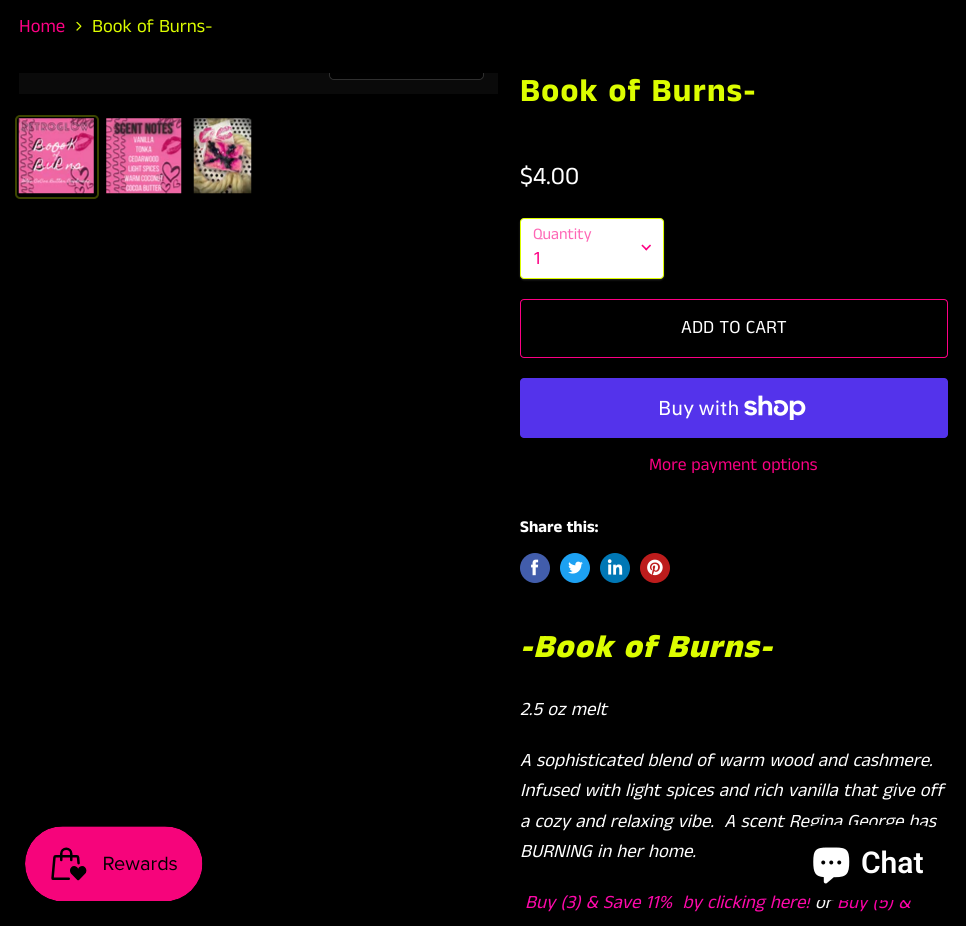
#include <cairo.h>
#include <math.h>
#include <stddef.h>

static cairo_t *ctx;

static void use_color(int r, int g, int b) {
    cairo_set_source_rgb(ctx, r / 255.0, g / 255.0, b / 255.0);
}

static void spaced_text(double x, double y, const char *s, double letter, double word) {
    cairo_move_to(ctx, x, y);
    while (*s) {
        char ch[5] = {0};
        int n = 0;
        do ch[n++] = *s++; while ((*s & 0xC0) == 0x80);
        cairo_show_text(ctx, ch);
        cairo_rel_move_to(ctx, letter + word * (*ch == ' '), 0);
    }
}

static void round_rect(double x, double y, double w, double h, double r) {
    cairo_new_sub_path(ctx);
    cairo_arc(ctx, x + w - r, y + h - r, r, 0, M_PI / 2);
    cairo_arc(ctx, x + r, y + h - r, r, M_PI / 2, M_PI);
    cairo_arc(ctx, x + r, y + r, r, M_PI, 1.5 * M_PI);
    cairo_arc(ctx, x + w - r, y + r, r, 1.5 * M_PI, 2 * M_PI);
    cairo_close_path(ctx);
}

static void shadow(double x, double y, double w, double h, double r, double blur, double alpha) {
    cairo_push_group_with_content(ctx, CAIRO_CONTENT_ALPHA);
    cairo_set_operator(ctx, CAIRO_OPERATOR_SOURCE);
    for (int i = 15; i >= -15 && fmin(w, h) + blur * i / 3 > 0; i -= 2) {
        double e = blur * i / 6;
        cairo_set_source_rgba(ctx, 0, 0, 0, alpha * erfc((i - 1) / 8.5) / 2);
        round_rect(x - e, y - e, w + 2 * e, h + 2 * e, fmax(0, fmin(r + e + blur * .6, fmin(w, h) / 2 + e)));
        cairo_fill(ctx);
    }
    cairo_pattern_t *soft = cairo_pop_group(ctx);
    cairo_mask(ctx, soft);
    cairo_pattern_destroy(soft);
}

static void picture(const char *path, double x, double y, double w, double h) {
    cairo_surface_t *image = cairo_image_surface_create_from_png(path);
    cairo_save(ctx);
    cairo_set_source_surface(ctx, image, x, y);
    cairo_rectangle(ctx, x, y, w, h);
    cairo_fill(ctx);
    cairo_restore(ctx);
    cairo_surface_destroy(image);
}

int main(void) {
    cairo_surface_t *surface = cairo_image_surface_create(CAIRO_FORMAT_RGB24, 966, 926);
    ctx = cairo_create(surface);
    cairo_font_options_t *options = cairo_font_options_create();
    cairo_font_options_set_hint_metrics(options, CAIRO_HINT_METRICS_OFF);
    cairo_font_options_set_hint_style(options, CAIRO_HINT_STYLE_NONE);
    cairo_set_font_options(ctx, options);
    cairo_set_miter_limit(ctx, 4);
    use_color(0, 0, 0);
    cairo_paint(ctx);
    cairo_select_font_face(ctx, "Anek Tamil", CAIRO_FONT_SLANT_NORMAL, CAIRO_FONT_WEIGHT_NORMAL);
    cairo_set_font_size(ctx, 18.75);
    use_color(253, 0, 132);
    cairo_move_to(ctx, 19, 32);
    cairo_show_text(ctx, "Home");
    picture("img1.png", 76, 21, 6, 10);
    use_color(220, 253, 0);
    cairo_move_to(ctx, 92, 32);
    cairo_show_text(ctx, "Book of Burns-");
    use_color(10, 10, 10);
    cairo_rectangle(ctx, 19, 73, 479, 21);
    cairo_fill(ctx);
    cairo_save(ctx);
    cairo_rectangle(ctx, 19, 73, 479, 21);
    cairo_clip(ctx);
    round_rect(329.5, 44.5, 154, 35, 4.5);
    use_color(47, 47, 47);
    cairo_set_line_width(ctx, 1);
    cairo_stroke(ctx);
    cairo_restore(ctx);
    cairo_set_source_rgba(ctx, 0, 0, 0, 0.9);
    cairo_new_path(ctx);
    cairo_move_to(ctx, 330, 73);
    cairo_line_to(ctx, 483, 73);
    cairo_line_to(ctx, 483, 75);
    cairo_curve_to(ctx, 483, 77, 481, 79, 479, 79);
    cairo_line_to(ctx, 334, 79);
    cairo_curve_to(ctx, 332, 79, 330, 77, 330, 75);
    cairo_close_path(ctx);
    cairo_fill(ctx);
    round_rect(16, 116, 82, 82, 4);
    use_color(60, 69, 0);
    cairo_stroke(ctx);
    picture("img2.png", 18, 118, 76, 76);
    picture("img3.png", 106, 118, 76, 76);
    picture("img4.png", 193, 118, 59, 76);
    cairo_select_font_face(ctx, "Anek Tamil", CAIRO_FONT_SLANT_NORMAL, CAIRO_FONT_WEIGHT_BOLD);
    cairo_set_font_size(ctx, 32.75);
    use_color(220, 253, 0);
    spaced_text(520, 101, "Book of Burns-", 1.25, 0);
    cairo_select_font_face(ctx, "Anek Tamil", CAIRO_FONT_SLANT_NORMAL, CAIRO_FONT_WEIGHT_NORMAL);
    cairo_set_font_size(ctx, 25);
    use_color(255, 255, 255);
    cairo_move_to(ctx, 520, 184);
    cairo_show_text(ctx, "$4.00");
    use_color(255, 255, 255);
    shadow(520, 219, 144, 61, 4, 1, 0.15);
    use_color(255, 255, 255);
    round_rect(520.5, 218.5, 143, 60, 3.5);
    cairo_fill_preserve(ctx);
    use_color(220, 253, 0);
    cairo_set_line_width(ctx, 1);
    cairo_stroke(ctx);
    cairo_set_font_size(ctx, 16);
    use_color(254, 102, 181);
    cairo_move_to(ctx, 533, 239);
    cairo_show_text(ctx, "Quantity");
    picture("img5.png", 641, 244, 10, 7);
    cairo_set_font_size(ctx, 18.75);
    use_color(253, 0, 132);
    cairo_move_to(ctx, 534, 264);
    cairo_show_text(ctx, "1");
    round_rect(520.5, 299.5, 427, 58, 3.5);
    cairo_stroke(ctx);
    use_color(255, 255, 255);
    cairo_move_to(ctx, 681, 333);
    cairo_show_text(ctx, "ADD TO CART");
    use_color(84, 51, 235);
    round_rect(520, 378, 428, 60, 4);
    cairo_fill(ctx);
    cairo_select_font_face(ctx, "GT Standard", CAIRO_FONT_SLANT_NORMAL, CAIRO_FONT_WEIGHT_NORMAL);
    cairo_set_font_size(ctx, 20);
    use_color(255, 255, 255);
    cairo_move_to(ctx, 658, 415);
    cairo_show_text(ctx, "Buy with");
    picture("img6.png", 744, 395, 62, 25);
    cairo_select_font_face(ctx, "Anek Tamil", CAIRO_FONT_SLANT_NORMAL, CAIRO_FONT_WEIGHT_NORMAL);
    cairo_set_font_size(ctx, 17.5);
    use_color(253, 0, 132);
    cairo_move_to(ctx, 649, 470);
    cairo_show_text(ctx, "More payment options");
    cairo_select_font_face(ctx, "Anek Tamil", CAIRO_FONT_SLANT_NORMAL, CAIRO_FONT_WEIGHT_BOLD);
    cairo_set_font_size(ctx, 16.5);
    use_color(255, 255, 255);
    cairo_move_to(ctx, 520, 532);
    cairo_show_text(ctx, "Share this:");
    use_color(66, 93, 171);
    cairo_new_path(ctx);
    cairo_arc(ctx, 535, 568, 15, 0, 2 * M_PI);
    cairo_fill(ctx);
    picture("img7.png", 531, 559, 8, 17);
    use_color(29, 161, 242);
    cairo_arc(ctx, 575, 568, 15, 0, 2 * M_PI);
    cairo_fill(ctx);
    picture("img8.png", 568, 561, 15, 13);
    use_color(0, 119, 181);
    cairo_arc(ctx, 615, 568, 15, 0, 2 * M_PI);
    cairo_fill(ctx);
    picture("img9.png", 607, 559, 16, 16);
    use_color(189, 28, 28);
    cairo_arc(ctx, 655, 568, 15, 0, 2 * M_PI);
    cairo_fill(ctx);
    picture("img10.png", 647, 559, 16, 17);
    cairo_select_font_face(ctx, "Anek Tamil ExtraBold", CAIRO_FONT_SLANT_ITALIC, CAIRO_FONT_WEIGHT_NORMAL);
    cairo_set_font_size(ctx, 32.75);
    use_color(220, 253, 0);
    spaced_text(520, 657, "-Book of Burns-", 1.25, 0);
    cairo_select_font_face(ctx, "Anek Tamil", CAIRO_FONT_SLANT_ITALIC, CAIRO_FONT_WEIGHT_NORMAL);
    cairo_set_font_size(ctx, 18.75);
    use_color(255, 255, 255);
    cairo_move_to(ctx, 520, 715);
    cairo_show_text(ctx, "2.5 oz melt");
    cairo_move_to(ctx, 520, 766);
    cairo_show_text(ctx, "A sophisticated blend of warm wood and cashmere.");
    cairo_move_to(ctx, 520, 796);
    cairo_show_text(ctx, "Infused with light spices and rich vanilla that give off");
    cairo_move_to(ctx, 520, 827);
    cairo_show_text(ctx, "a cozy and relaxing vibe.  A scent Regina George has");
    cairo_move_to(ctx, 520, 857);
    cairo_show_text(ctx, "BURNING in her home.");
    use_color(253, 9, 170);
    cairo_move_to(ctx, 525, 908);
    cairo_show_text(ctx, "Buy (3) & Save 11%  by clicking here!");
    use_color(255, 255, 255);
    cairo_move_to(ctx, 815, 908);
    cairo_show_text(ctx, "or");
    use_color(255, 0, 168);
    cairo_move_to(ctx, 837, 908);
    cairo_show_text(ctx, "Buy (5) &");
    picture("img11.png", 25, 826, 178, 75);
    use_color(0, 0, 0);
    shadow(798, 825, 141, 75, 20, 3, 0.15);
    use_color(0, 0, 0);
    round_rect(798, 825, 141, 75, 20);
    cairo_fill(ctx);
    picture("img12.png", 813, 847, 37, 37);
    cairo_select_font_face(ctx, "Roboto SemiBold", CAIRO_FONT_SLANT_NORMAL, CAIRO_FONT_WEIGHT_NORMAL);
    cairo_set_font_size(ctx, 30);
    use_color(255, 255, 255);
    cairo_move_to(ctx, 861, 873);
    cairo_show_text(ctx, "Chat");
    cairo_surface_write_to_png(surface, "result.png");
    cairo_font_options_destroy(options);
    cairo_destroy(ctx);
    cairo_surface_destroy(surface);
    return 0;
}
